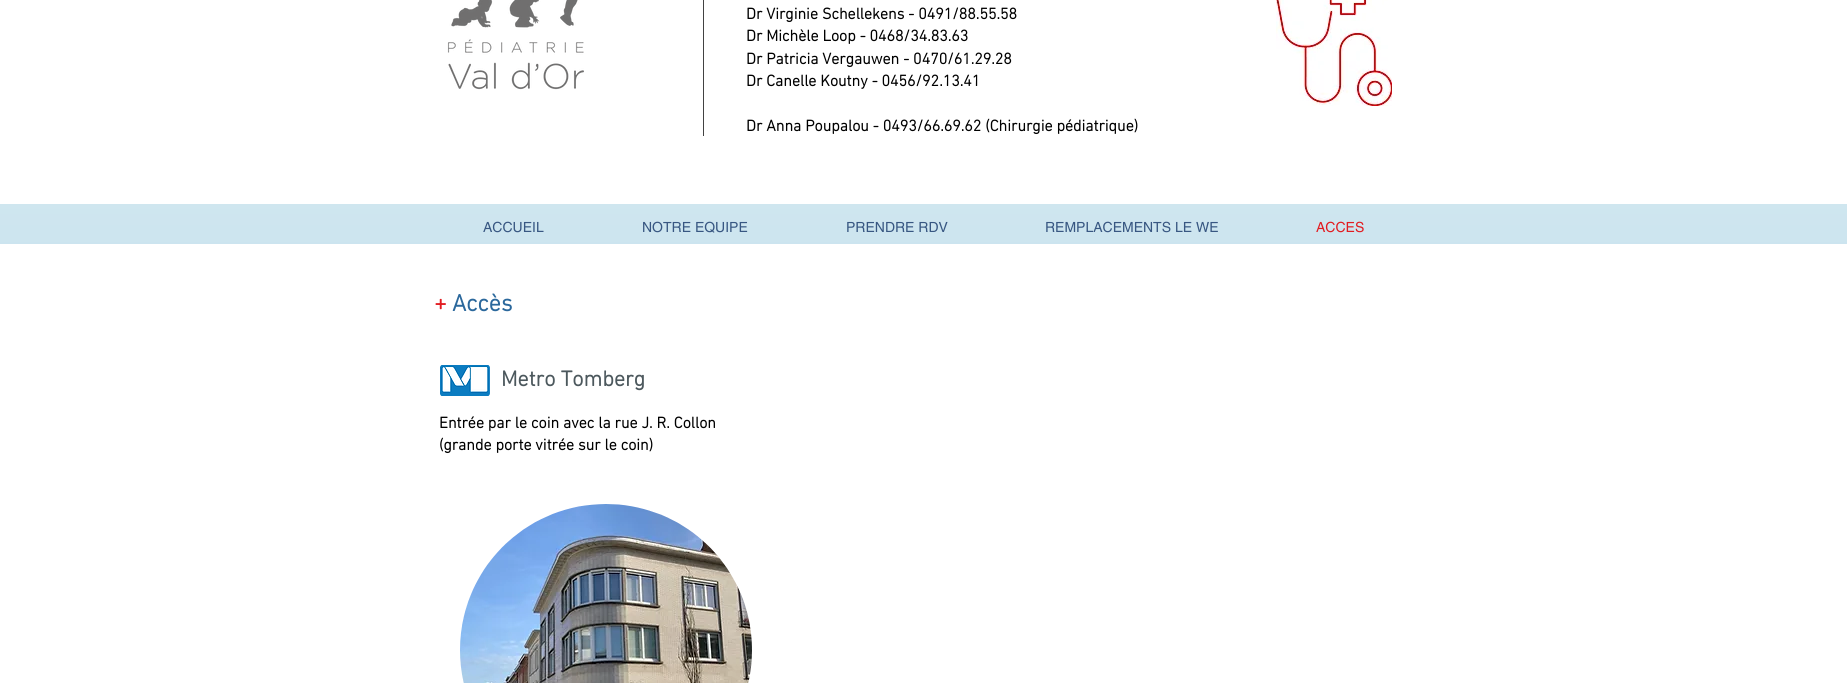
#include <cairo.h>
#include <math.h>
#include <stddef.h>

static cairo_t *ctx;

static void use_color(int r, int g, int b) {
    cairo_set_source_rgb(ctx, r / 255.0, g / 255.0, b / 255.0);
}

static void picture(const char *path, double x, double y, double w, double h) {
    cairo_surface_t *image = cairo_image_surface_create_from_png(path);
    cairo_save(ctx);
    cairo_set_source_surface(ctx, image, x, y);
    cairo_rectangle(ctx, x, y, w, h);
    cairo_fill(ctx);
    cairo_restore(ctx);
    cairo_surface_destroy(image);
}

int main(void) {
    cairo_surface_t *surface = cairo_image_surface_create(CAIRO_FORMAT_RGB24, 1847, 683);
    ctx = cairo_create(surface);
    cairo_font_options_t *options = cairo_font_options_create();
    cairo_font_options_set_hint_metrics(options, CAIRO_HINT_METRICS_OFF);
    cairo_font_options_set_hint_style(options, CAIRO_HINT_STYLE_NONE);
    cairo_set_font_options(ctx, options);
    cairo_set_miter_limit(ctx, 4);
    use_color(255, 255, 255);
    cairo_paint(ctx);
    picture("img1.png", 447, 0, 137, 90);
    use_color(66, 66, 66);
    cairo_rectangle(ctx, 703, 0, 1, 136);
    cairo_fill(ctx);
    cairo_select_font_face(ctx, "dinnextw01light", CAIRO_FONT_SLANT_NORMAL, CAIRO_FONT_WEIGHT_BOLD);
    cairo_set_font_size(ctx, 16);
    use_color(0, 0, 0);
    cairo_move_to(ctx, 746, 19);
    cairo_show_text(ctx, "Dr Virginie Schellekens - 0491/88.55.58");
    cairo_move_to(ctx, 746, 41);
    cairo_show_text(ctx, "Dr Michèle Loop - 0468/34.83.63");
    cairo_move_to(ctx, 746, 64);
    cairo_show_text(ctx, "Dr Patricia Vergauwen - 0470/61.29.28");
    cairo_move_to(ctx, 746, 86);
    cairo_show_text(ctx, "Dr Canelle Koutny - 0456/92.13.41");
    cairo_move_to(ctx, 746, 131);
    cairo_show_text(ctx, "Dr Anna Poupalou - 0493/66.69.62 (Chirurgie pédiatrique)");
    picture("img2.png", 1276, 0, 116, 106);
    use_color(190, 221, 234);
    cairo_rectangle(ctx, 0, 204, 1847, 40);
    cairo_fill(ctx);
    picture("img3.png", 0, 204, 1847, 40);
    cairo_select_font_face(ctx, "helvetica", CAIRO_FONT_SLANT_NORMAL, CAIRO_FONT_WEIGHT_NORMAL);
    cairo_set_font_size(ctx, 14);
    use_color(56, 87, 130);
    cairo_move_to(ctx, 483, 232);
    cairo_show_text(ctx, "ACCUEIL");
    cairo_move_to(ctx, 642, 232);
    cairo_show_text(ctx, "NOTRE EQUIPE");
    cairo_move_to(ctx, 846, 232);
    cairo_show_text(ctx, "PRENDRE RDV");
    cairo_move_to(ctx, 1045, 232);
    cairo_show_text(ctx, "REMPLACEMENTS LE WE");
    use_color(226, 28, 33);
    cairo_move_to(ctx, 1316, 232);
    cairo_show_text(ctx, "ACCES");
    cairo_select_font_face(ctx, "dinnextw01light", CAIRO_FONT_SLANT_NORMAL, CAIRO_FONT_WEIGHT_BOLD);
    cairo_set_font_size(ctx, 24);
    cairo_move_to(ctx, 434, 311);
    cairo_show_text(ctx, "+");
    use_color(43, 104, 156);
    cairo_move_to(ctx, 452, 311);
    cairo_show_text(ctx, "Accès");
    picture("img4.png", 440, 365, 50, 31);
    cairo_set_font_size(ctx, 22);
    use_color(76, 88, 93);
    cairo_move_to(ctx, 501, 386);
    cairo_show_text(ctx, "Metro Tomberg");
    cairo_set_font_size(ctx, 16);
    use_color(0, 0, 0);
    cairo_move_to(ctx, 439, 428);
    cairo_show_text(ctx, "Entrée par le coin avec la rue J. R. Collon");
    cairo_move_to(ctx, 439, 450);
    cairo_show_text(ctx, "(grande porte vitrée sur le coin)");
    picture("img5.png", 460, 504, 292, 179);
    cairo_surface_write_to_png(surface, "result.png");
    cairo_font_options_destroy(options);
    cairo_destroy(ctx);
    cairo_surface_destroy(surface);
    return 0;
}
